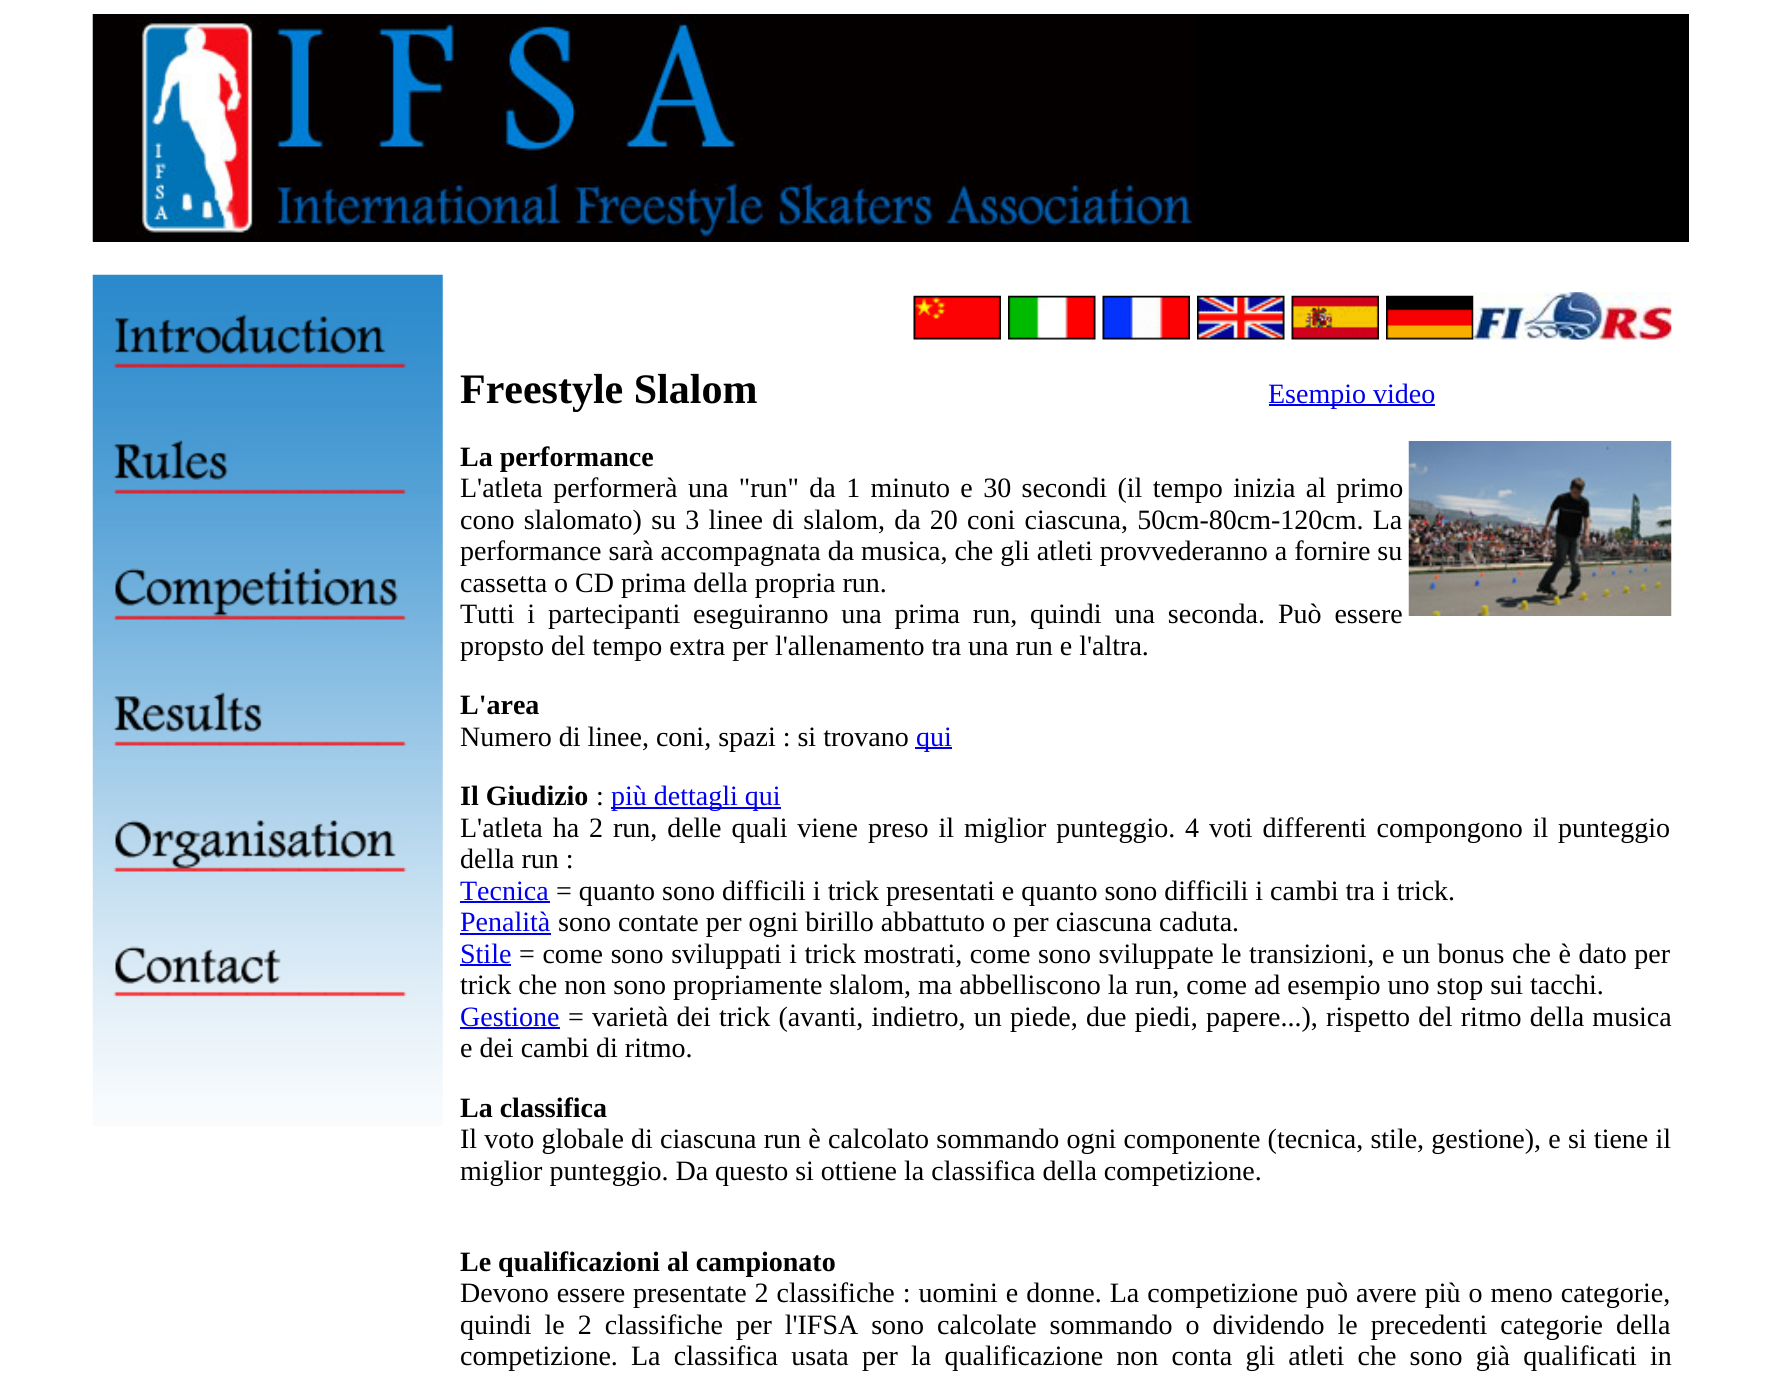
#include <cairo.h>
#include <math.h>
#include <stddef.h>

static cairo_t *ctx;

static void use_color(int r, int g, int b) {
    cairo_set_source_rgb(ctx, r / 255.0, g / 255.0, b / 255.0);
}

static void spaced_text(double x, double y, const char *s, double letter, double word) {
    cairo_move_to(ctx, x, y);
    while (*s) {
        char ch[5] = {0};
        int n = 0;
        do ch[n++] = *s++; while ((*s & 0xC0) == 0x80);
        cairo_show_text(ctx, ch);
        cairo_rel_move_to(ctx, letter + word * (*ch == ' '), 0);
    }
}

static void picture(const char *path, double x, double y, double w, double h) {
    cairo_surface_t *image = cairo_image_surface_create_from_png(path);
    cairo_save(ctx);
    cairo_set_source_surface(ctx, image, x, y);
    cairo_rectangle(ctx, x, y, w, h);
    cairo_fill(ctx);
    cairo_restore(ctx);
    cairo_surface_destroy(image);
}

int main(void) {
    cairo_surface_t *surface = cairo_image_surface_create(CAIRO_FORMAT_RGB24, 1780, 1388);
    ctx = cairo_create(surface);
    cairo_font_options_t *options = cairo_font_options_create();
    cairo_font_options_set_hint_metrics(options, CAIRO_HINT_METRICS_OFF);
    cairo_font_options_set_hint_style(options, CAIRO_HINT_STYLE_NONE);
    cairo_set_font_options(ctx, options);
    cairo_set_miter_limit(ctx, 4);
    use_color(255, 255, 255);
    cairo_paint(ctx);
    use_color(0, 0, 0);
    cairo_rectangle(ctx, 93, 14, 1596, 228);
    cairo_fill(ctx);
    picture("img1.png", 92, 14, 1104, 228);
    picture("img2.png", 92, 274, 351, 852);
    picture("img3.png", 913, 295, 88, 45);
    picture("img4.png", 1008, 295, 88, 45);
    picture("img5.png", 1102, 295, 88, 45);
    picture("img6.png", 1197, 295, 88, 45);
    picture("img7.png", 1291, 295, 88, 45);
    picture("img8.png", 1386, 295, 88, 45);
    picture("img9.png", 1473, 292, 199, 48);
    cairo_select_font_face(ctx, "Liberation Serif", CAIRO_FONT_SLANT_NORMAL, CAIRO_FONT_WEIGHT_BOLD);
    cairo_set_font_size(ctx, 42);
    cairo_move_to(ctx, 460, 403);
    cairo_show_text(ctx, "Freestyle Slalom");
    use_color(0, 0, 238);
    cairo_rectangle(ctx, 1269, 404, 166, 2);
    cairo_fill(ctx);
    cairo_select_font_face(ctx, "Liberation Serif", CAIRO_FONT_SLANT_NORMAL, CAIRO_FONT_WEIGHT_NORMAL);
    cairo_set_font_size(ctx, 28);
    cairo_move_to(ctx, 1268, 403);
    cairo_show_text(ctx, "Esempio video");
    cairo_select_font_face(ctx, "Liberation Serif", CAIRO_FONT_SLANT_NORMAL, CAIRO_FONT_WEIGHT_BOLD);
    use_color(0, 0, 0);
    cairo_move_to(ctx, 460, 466);
    cairo_show_text(ctx, "La performance");
    picture("img10.png", 1408, 441, 264, 175);
    cairo_select_font_face(ctx, "Liberation Serif", CAIRO_FONT_SLANT_NORMAL, CAIRO_FONT_WEIGHT_NORMAL);
    spaced_text(460, 497, "L'atleta performerà una \"run\" da 1 minuto e 30 secondi (il tempo inizia al primo", 0, 3.4);
    spaced_text(460, 529, "cono slalomato) su 3 linee di slalom, da 20 coni ciascuna, 50cm-80cm-120cm. La", 0, 2.25);
    cairo_move_to(ctx, 460, 560);
    cairo_show_text(ctx, "performance sarà accompagnata da musica, che gli atleti provvederanno a fornire su");
    cairo_move_to(ctx, 460, 592);
    cairo_show_text(ctx, "cassetta o CD prima della propria run.");
    spaced_text(460, 623, "Tutti i partecipanti eseguiranno una prima run, quindi una seconda. Può essere", 0, 5.9);
    cairo_move_to(ctx, 460, 655);
    cairo_show_text(ctx, "propsto del tempo extra per l'allenamento tra una run e l'altra.");
    cairo_select_font_face(ctx, "Liberation Serif", CAIRO_FONT_SLANT_NORMAL, CAIRO_FONT_WEIGHT_BOLD);
    cairo_move_to(ctx, 460, 714);
    cairo_show_text(ctx, "L'area");
    cairo_select_font_face(ctx, "Liberation Serif", CAIRO_FONT_SLANT_NORMAL, CAIRO_FONT_WEIGHT_NORMAL);
    cairo_move_to(ctx, 460, 746);
    cairo_show_text(ctx, "Numero di linee, coni, spazi : si trovano");
    use_color(0, 0, 238);
    cairo_rectangle(ctx, 915, 747, 37, 2);
    cairo_fill(ctx);
    cairo_move_to(ctx, 916, 746);
    cairo_show_text(ctx, "qui");
    cairo_select_font_face(ctx, "Liberation Serif", CAIRO_FONT_SLANT_NORMAL, CAIRO_FONT_WEIGHT_BOLD);
    use_color(0, 0, 0);
    cairo_move_to(ctx, 460, 805);
    cairo_show_text(ctx, "Il Giudizio");
    cairo_select_font_face(ctx, "Liberation Serif", CAIRO_FONT_SLANT_NORMAL, CAIRO_FONT_WEIGHT_NORMAL);
    cairo_move_to(ctx, 596, 805);
    cairo_show_text(ctx, ":");
    use_color(0, 0, 238);
    cairo_rectangle(ctx, 611, 807, 170, 2);
    cairo_fill(ctx);
    cairo_move_to(ctx, 611, 805);
    cairo_show_text(ctx, "più dettagli qui");
    use_color(0, 0, 0);
    spaced_text(460, 837, "L'atleta ha 2 run, delle quali viene preso il miglior punteggio. 4 voti differenti compongono il punteggio", 0, 2.9);
    cairo_move_to(ctx, 460, 868);
    cairo_show_text(ctx, "della run :");
    use_color(0, 0, 238);
    cairo_move_to(ctx, 460, 900);
    cairo_show_text(ctx, "Tecnica");
    cairo_rectangle(ctx, 460, 901, 90, 2);
    cairo_fill(ctx);
    use_color(0, 0, 0);
    cairo_move_to(ctx, 556, 900);
    cairo_show_text(ctx, "= quanto sono difficili i trick presentati e quanto sono difficili i cambi tra i trick.");
    use_color(0, 0, 238);
    cairo_move_to(ctx, 460, 931);
    cairo_show_text(ctx, "Penalità");
    cairo_rectangle(ctx, 460, 933, 91, 2);
    cairo_fill(ctx);
    use_color(0, 0, 0);
    cairo_move_to(ctx, 558, 931);
    cairo_show_text(ctx, "sono contate per ogni birillo abbattuto o per ciascuna caduta.");
    use_color(0, 0, 238);
    cairo_move_to(ctx, 460, 963);
    cairo_show_text(ctx, "Stile");
    cairo_rectangle(ctx, 460, 964, 51, 2);
    cairo_fill(ctx);
    use_color(0, 0, 0);
    spaced_text(519, 963, "= come sono sviluppati i trick mostrati, come sono sviluppate le transizioni, e un bonus che è dato per", 0, 0.6);
    cairo_move_to(ctx, 460, 994);
    cairo_show_text(ctx, "trick che non sono propriamente slalom, ma abbelliscono la run, come ad esempio uno stop sui tacchi.");
    use_color(0, 0, 238);
    cairo_move_to(ctx, 460, 1026);
    cairo_show_text(ctx, "Gestione");
    cairo_rectangle(ctx, 460, 1027, 100, 2);
    cairo_fill(ctx);
    use_color(0, 0, 0);
    spaced_text(568, 1026, "= varietà dei trick (avanti, indietro, un piede, due piedi, papere...), rispetto del ritmo della musica", 0, 1.25);
    cairo_move_to(ctx, 460, 1057);
    cairo_show_text(ctx, "e dei cambi di ritmo.");
    cairo_select_font_face(ctx, "Liberation Serif", CAIRO_FONT_SLANT_NORMAL, CAIRO_FONT_WEIGHT_BOLD);
    cairo_move_to(ctx, 460, 1117);
    cairo_show_text(ctx, "La classifica");
    cairo_select_font_face(ctx, "Liberation Serif", CAIRO_FONT_SLANT_NORMAL, CAIRO_FONT_WEIGHT_NORMAL);
    spaced_text(460, 1148, "Il voto globale di ciascuna run è calcolato sommando ogni componente (tecnica, stile, gestione), e si tiene il", 0, 0.25);
    cairo_move_to(ctx, 460, 1180);
    cairo_show_text(ctx, "miglior punteggio. Da questo si ottiene la classifica della competizione.");
    cairo_select_font_face(ctx, "Liberation Serif", CAIRO_FONT_SLANT_NORMAL, CAIRO_FONT_WEIGHT_BOLD);
    cairo_move_to(ctx, 460, 1271);
    cairo_show_text(ctx, "Le qualificazioni al campionato");
    cairo_select_font_face(ctx, "Liberation Serif", CAIRO_FONT_SLANT_NORMAL, CAIRO_FONT_WEIGHT_NORMAL);
    spaced_text(460, 1302, "Devono essere presentate 2 classifiche : uomini e donne. La competizione può avere più o meno categorie,", 0, 1);
    spaced_text(460, 1334, "quindi le 2 classifiche per l'IFSA sono calcolate sommando o dividendo le precedenti categorie della", 0, 6);
    cairo_move_to(ctx, 460, 1365);
    cairo_show_text(ctx, "competizione.");
    spaced_text(631, 1365, "La classifica usata per la qualificazione non conta gli atleti che sono già qualificati in", 0, 6.25);
    cairo_surface_write_to_png(surface, "result.png");
    cairo_font_options_destroy(options);
    cairo_destroy(ctx);
    cairo_surface_destroy(surface);
    return 0;
}
